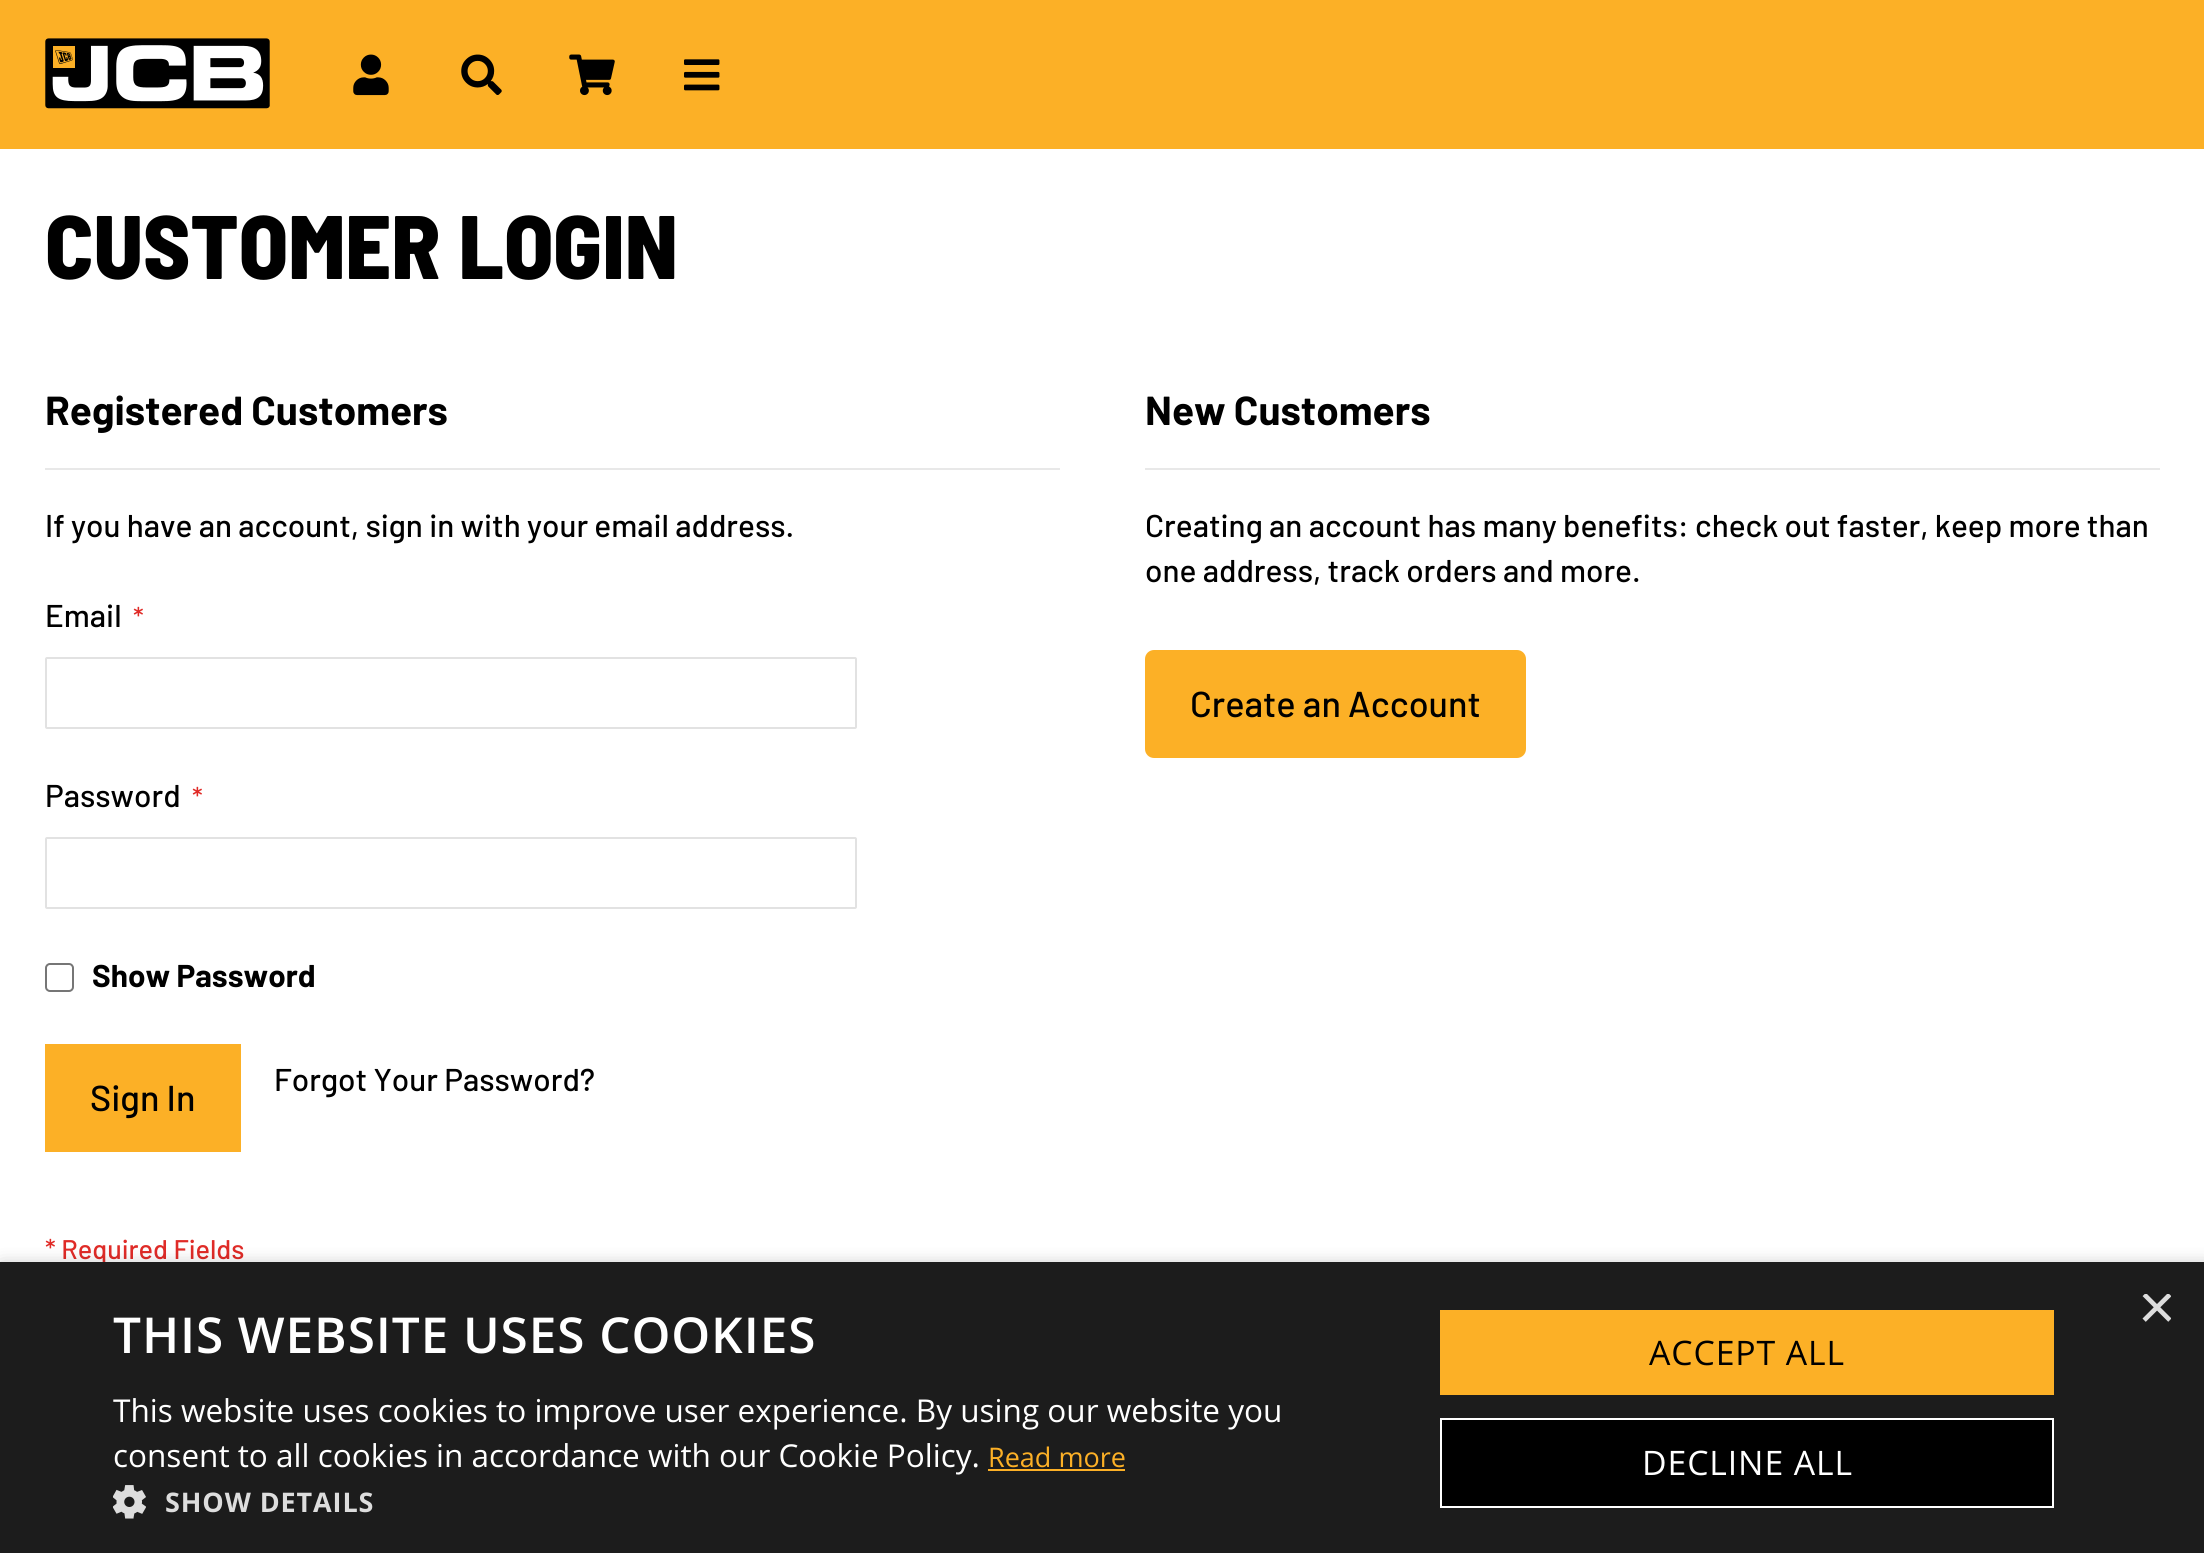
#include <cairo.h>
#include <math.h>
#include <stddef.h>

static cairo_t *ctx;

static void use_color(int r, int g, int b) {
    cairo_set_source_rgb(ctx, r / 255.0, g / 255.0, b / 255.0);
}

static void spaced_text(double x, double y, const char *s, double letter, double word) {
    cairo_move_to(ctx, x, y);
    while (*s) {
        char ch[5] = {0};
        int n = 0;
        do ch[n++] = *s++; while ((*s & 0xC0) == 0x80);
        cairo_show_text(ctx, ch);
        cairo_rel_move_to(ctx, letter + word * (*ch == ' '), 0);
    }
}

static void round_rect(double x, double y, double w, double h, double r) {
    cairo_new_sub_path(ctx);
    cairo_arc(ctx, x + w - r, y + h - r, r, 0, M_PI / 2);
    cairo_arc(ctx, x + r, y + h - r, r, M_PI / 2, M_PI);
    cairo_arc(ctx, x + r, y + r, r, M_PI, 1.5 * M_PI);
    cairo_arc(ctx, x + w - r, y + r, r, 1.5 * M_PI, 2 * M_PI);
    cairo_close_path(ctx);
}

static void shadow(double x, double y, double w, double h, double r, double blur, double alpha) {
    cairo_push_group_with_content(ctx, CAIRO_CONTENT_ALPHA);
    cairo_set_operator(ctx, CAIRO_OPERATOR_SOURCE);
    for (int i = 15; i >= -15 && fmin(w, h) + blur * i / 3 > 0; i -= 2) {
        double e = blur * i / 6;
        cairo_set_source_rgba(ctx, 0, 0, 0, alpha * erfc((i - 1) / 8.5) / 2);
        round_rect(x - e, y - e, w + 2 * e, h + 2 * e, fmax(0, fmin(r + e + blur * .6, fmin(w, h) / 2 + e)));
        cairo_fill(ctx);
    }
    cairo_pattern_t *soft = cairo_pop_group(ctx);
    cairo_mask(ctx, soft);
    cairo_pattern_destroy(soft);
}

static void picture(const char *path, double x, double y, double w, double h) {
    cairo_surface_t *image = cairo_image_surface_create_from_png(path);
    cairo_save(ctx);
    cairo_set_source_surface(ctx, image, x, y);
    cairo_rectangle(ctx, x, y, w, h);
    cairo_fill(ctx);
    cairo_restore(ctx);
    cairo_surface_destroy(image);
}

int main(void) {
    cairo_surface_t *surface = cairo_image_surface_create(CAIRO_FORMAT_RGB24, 2204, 1553);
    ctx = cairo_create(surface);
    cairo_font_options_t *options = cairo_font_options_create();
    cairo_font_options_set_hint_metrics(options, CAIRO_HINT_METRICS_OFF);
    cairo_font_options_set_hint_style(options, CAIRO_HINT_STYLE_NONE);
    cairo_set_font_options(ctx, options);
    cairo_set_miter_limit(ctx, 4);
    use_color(255, 255, 255);
    cairo_paint(ctx);
    use_color(252, 176, 38);
    cairo_rectangle(ctx, 0, 0, 2204, 149);
    cairo_fill(ctx);
    picture("img1.png", 45, 38, 225, 71);
    picture("img2.png", 353, 54, 36, 42);
    picture("img3.png", 461, 54, 41, 41);
    picture("img4.png", 569, 54, 46, 42);
    picture("img5.png", 684, 59, 36, 32);
    cairo_select_font_face(ctx, "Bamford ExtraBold", CAIRO_FONT_SLANT_NORMAL, CAIRO_FONT_WEIGHT_NORMAL);
    cairo_set_font_size(ctx, 90);
    use_color(0, 0, 0);
    cairo_move_to(ctx, 45, 279);
    cairo_show_text(ctx, "CUSTOMER LOGIN");
    use_color(232, 232, 232);
    cairo_rectangle(ctx, 45, 468, 1015, 2);
    cairo_fill(ctx);
    cairo_select_font_face(ctx, "Bamford", CAIRO_FONT_SLANT_NORMAL, CAIRO_FONT_WEIGHT_BOLD);
    cairo_set_font_size(ctx, 40.5);
    use_color(0, 0, 0);
    cairo_move_to(ctx, 45, 425);
    cairo_show_text(ctx, "Registered Customers");
    cairo_select_font_face(ctx, "Bamford", CAIRO_FONT_SLANT_NORMAL, CAIRO_FONT_WEIGHT_NORMAL);
    cairo_set_font_size(ctx, 31.5);
    cairo_move_to(ctx, 45, 537);
    cairo_show_text(ctx, "If you have an account, sign in with your email address.");
    cairo_move_to(ctx, 45, 627);
    cairo_show_text(ctx, "Email");
    cairo_set_font_size(ctx, 27);
    use_color(224, 43, 39);
    cairo_move_to(ctx, 133, 627);
    cairo_show_text(ctx, "*");
    round_rect(46, 658, 810, 70, 1);
    use_color(226, 226, 226);
    cairo_stroke(ctx);
    cairo_set_font_size(ctx, 31.5);
    use_color(0, 0, 0);
    cairo_move_to(ctx, 45, 807);
    cairo_show_text(ctx, "Password");
    cairo_set_font_size(ctx, 27);
    use_color(224, 43, 39);
    cairo_move_to(ctx, 192, 807);
    cairo_show_text(ctx, "*");
    round_rect(46, 838, 810, 70, 1);
    use_color(226, 226, 226);
    cairo_stroke(ctx);
    round_rect(46, 964, 27, 27, 4);
    use_color(118, 118, 118);
    cairo_stroke(ctx);
    cairo_select_font_face(ctx, "Bamford", CAIRO_FONT_SLANT_NORMAL, CAIRO_FONT_WEIGHT_BOLD);
    cairo_set_font_size(ctx, 31.5);
    use_color(0, 0, 0);
    cairo_move_to(ctx, 92, 987);
    cairo_show_text(ctx, "Show Password");
    use_color(252, 176, 38);
    cairo_rectangle(ctx, 45, 1044, 196, 108);
    cairo_fill(ctx);
    cairo_select_font_face(ctx, "Bamford", CAIRO_FONT_SLANT_NORMAL, CAIRO_FONT_WEIGHT_NORMAL);
    cairo_set_font_size(ctx, 36);
    use_color(0, 0, 0);
    cairo_move_to(ctx, 90, 1111);
    cairo_show_text(ctx, "Sign In");
    cairo_set_font_size(ctx, 31.5);
    cairo_move_to(ctx, 274, 1091);
    cairo_show_text(ctx, "Forgot Your Password?");
    cairo_set_font_size(ctx, 27);
    use_color(224, 43, 39);
    cairo_move_to(ctx, 45, 1259);
    cairo_show_text(ctx, "* Required Fields");
    use_color(232, 232, 232);
    cairo_rectangle(ctx, 1145, 468, 1015, 2);
    cairo_fill(ctx);
    cairo_select_font_face(ctx, "Bamford", CAIRO_FONT_SLANT_NORMAL, CAIRO_FONT_WEIGHT_BOLD);
    cairo_set_font_size(ctx, 40.5);
    use_color(0, 0, 0);
    cairo_move_to(ctx, 1145, 425);
    cairo_show_text(ctx, "New Customers");
    cairo_select_font_face(ctx, "Bamford", CAIRO_FONT_SLANT_NORMAL, CAIRO_FONT_WEIGHT_NORMAL);
    cairo_set_font_size(ctx, 31.5);
    cairo_move_to(ctx, 1145, 537);
    cairo_show_text(ctx, "Creating an account has many benefits: check out faster, keep more than");
    cairo_move_to(ctx, 1145, 582);
    cairo_show_text(ctx, "one address, track orders and more.");
    use_color(252, 176, 38);
    round_rect(1145, 650, 381, 108, 9);
    cairo_fill(ctx);
    cairo_set_font_size(ctx, 36);
    use_color(0, 0, 0);
    cairo_move_to(ctx, 1190, 717);
    cairo_show_text(ctx, "Create an Account");
    use_color(0, 0, 0);
    shadow(2, 1267, 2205, 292, 0, 9, 0.35);
    use_color(28, 28, 28);
    cairo_rectangle(ctx, 0, 1262, 2204, 291);
    cairo_fill(ctx);
    cairo_save(ctx);
    cairo_rectangle(ctx, 2138, 1294, 33, 34);
    cairo_clip(ctx);
    cairo_select_font_face(ctx, "Liberation Sans", CAIRO_FONT_SLANT_NORMAL, CAIRO_FONT_WEIGHT_NORMAL);
    cairo_set_font_size(ctx, 65);
    use_color(221, 221, 221);
    cairo_move_to(ctx, 2138, 1329);
    cairo_show_text(ctx, "×");
    cairo_restore(ctx);
    cairo_select_font_face(ctx, "Open Sans SemiBold", CAIRO_FONT_SLANT_NORMAL, CAIRO_FONT_WEIGHT_NORMAL);
    cairo_set_font_size(ctx, 49.5);
    use_color(255, 255, 255);
    spaced_text(113, 1353, "THIS WEBSITE USES COOKIES", 0.9, 0);
    cairo_select_font_face(ctx, "Open Sans", CAIRO_FONT_SLANT_NORMAL, CAIRO_FONT_WEIGHT_NORMAL);
    cairo_set_font_size(ctx, 31.5);
    cairo_move_to(ctx, 113, 1422);
    cairo_show_text(ctx, "This website uses cookies to improve user experience. By using our website you");
    cairo_move_to(ctx, 113, 1467);
    cairo_show_text(ctx, "consent to all cookies in accordance with our Cookie Policy.");
    cairo_set_font_size(ctx, 27);
    use_color(252, 176, 38);
    cairo_move_to(ctx, 988, 1467);
    cairo_show_text(ctx, "Read more");
    cairo_rectangle(ctx, 988, 1469, 137, 2);
    cairo_fill(ctx);
    picture("img6.png", 113, 1485, 33, 34);
    cairo_select_font_face(ctx, "Open Sans", CAIRO_FONT_SLANT_NORMAL, CAIRO_FONT_WEIGHT_BOLD);
    use_color(221, 221, 221);
    spaced_text(165, 1512, "SHOW DETAILS", 0.9, 0);
    use_color(252, 176, 38);
    cairo_rectangle(ctx, 1440, 1310, 614, 85);
    cairo_fill(ctx);
    cairo_select_font_face(ctx, "Open Sans", CAIRO_FONT_SLANT_NORMAL, CAIRO_FONT_WEIGHT_NORMAL);
    cairo_set_font_size(ctx, 33.75);
    use_color(0, 0, 0);
    spaced_text(1649, 1365, "ACCEPT ALL", 0.9, 0);
    cairo_rectangle(ctx, 1441, 1419, 612, 88);
    cairo_fill_preserve(ctx);
    use_color(255, 255, 255);
    cairo_stroke(ctx);
    spaced_text(1642, 1475, "DECLINE ALL", 0.9, 0);
    cairo_surface_write_to_png(surface, "result.png");
    cairo_font_options_destroy(options);
    cairo_destroy(ctx);
    cairo_surface_destroy(surface);
    return 0;
}
